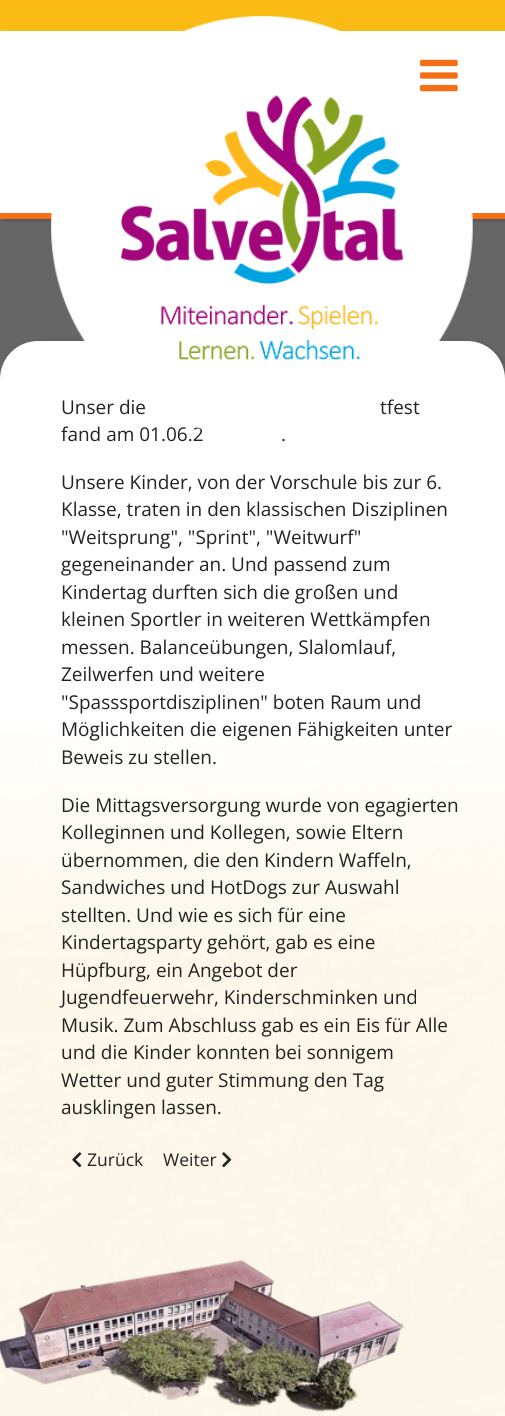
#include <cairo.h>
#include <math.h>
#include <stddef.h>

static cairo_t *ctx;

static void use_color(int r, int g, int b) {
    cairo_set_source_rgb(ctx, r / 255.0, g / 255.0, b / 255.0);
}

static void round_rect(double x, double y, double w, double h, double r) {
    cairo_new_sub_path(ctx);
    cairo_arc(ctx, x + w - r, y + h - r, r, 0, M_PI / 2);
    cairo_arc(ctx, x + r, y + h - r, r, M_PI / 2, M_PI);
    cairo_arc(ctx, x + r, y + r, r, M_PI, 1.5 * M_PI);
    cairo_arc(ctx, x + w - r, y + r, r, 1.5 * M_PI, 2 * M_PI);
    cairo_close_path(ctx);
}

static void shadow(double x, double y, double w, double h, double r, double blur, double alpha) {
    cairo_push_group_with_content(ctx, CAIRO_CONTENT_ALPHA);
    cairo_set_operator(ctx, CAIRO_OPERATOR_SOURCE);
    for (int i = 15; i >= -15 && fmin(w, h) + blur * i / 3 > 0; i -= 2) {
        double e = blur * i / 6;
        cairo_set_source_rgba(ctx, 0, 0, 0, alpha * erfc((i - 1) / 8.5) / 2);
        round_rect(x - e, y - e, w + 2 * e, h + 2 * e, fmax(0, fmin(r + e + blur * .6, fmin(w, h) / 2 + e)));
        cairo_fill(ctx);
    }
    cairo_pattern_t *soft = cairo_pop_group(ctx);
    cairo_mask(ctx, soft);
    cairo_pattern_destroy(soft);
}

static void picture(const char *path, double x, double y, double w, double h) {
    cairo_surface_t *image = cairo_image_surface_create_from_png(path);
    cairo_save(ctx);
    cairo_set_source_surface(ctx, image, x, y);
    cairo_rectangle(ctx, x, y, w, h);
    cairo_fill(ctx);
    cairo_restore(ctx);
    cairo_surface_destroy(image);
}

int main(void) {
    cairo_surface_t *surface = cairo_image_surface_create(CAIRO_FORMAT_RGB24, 505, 1416);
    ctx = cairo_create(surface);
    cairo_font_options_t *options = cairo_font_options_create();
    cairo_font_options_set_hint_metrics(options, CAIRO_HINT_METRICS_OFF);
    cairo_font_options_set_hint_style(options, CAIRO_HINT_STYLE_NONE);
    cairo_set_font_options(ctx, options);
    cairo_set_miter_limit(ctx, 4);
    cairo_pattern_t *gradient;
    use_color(255, 255, 255);
    cairo_paint(ctx);
    picture("img1.png", 0, 729, 505, 687);
    use_color(102, 102, 102);
    cairo_rectangle(ctx, 0, 219, 505, 160);
    cairo_fill(ctx);
    use_color(85, 85, 85);
    shadow(3, 3, 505, 218, 0, 1, 1);
    use_color(255, 255, 255);
    cairo_rectangle(ctx, 1, 31, 504, 182);
    cairo_fill(ctx);
    use_color(250, 188, 20);
    cairo_rectangle(ctx, 0, 0, 505, 31);
    cairo_fill(ctx);
    use_color(244, 110, 22);
    cairo_rectangle(ctx, 0, 213, 505, 6);
    cairo_fill(ctx);
    cairo_set_source_rgba(ctx, 0.98, 0.737, 0.078, 0.85);
    cairo_rectangle(ctx, 0, 729, 505, 687);
    cairo_fill(ctx);
    cairo_save(ctx);
    cairo_set_fill_rule(ctx, CAIRO_FILL_RULE_EVEN_ODD);
    cairo_new_path(ctx);
    cairo_move_to(ctx, 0, 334);
    cairo_line_to(ctx, 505, 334);
    cairo_line_to(ctx, 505, 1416);
    cairo_line_to(ctx, 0, 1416);
    cairo_close_path(ctx);
    cairo_move_to(ctx, 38, 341);
    cairo_line_to(ctx, 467, 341);
    cairo_curve_to(ctx, 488, 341, 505, 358, 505, 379);
    cairo_line_to(ctx, 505, 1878);
    cairo_curve_to(ctx, 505, 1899, 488, 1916, 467, 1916);
    cairo_line_to(ctx, 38, 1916);
    cairo_curve_to(ctx, 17, 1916, 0, 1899, 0, 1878);
    cairo_line_to(ctx, 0, 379);
    cairo_curve_to(ctx, 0, 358, 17, 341, 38, 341);
    cairo_close_path(ctx);
    cairo_clip(ctx);
    use_color(85, 85, 85);
    shadow(3, 344, 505, 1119, 38, 3, 1);
    cairo_restore(ctx);
    cairo_save(ctx);
    round_rect(0, 341, 505, 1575, 38);
    cairo_clip(ctx);
    gradient = cairo_pattern_create_linear(252, 341, 253, 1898);
    cairo_pattern_add_color_stop_rgba(gradient, 0, 1, 1, 1, 1);
    cairo_pattern_add_color_stop_rgba(gradient, 0.24, 1, 1, 1, 1);
    cairo_pattern_add_color_stop_rgba(gradient, 0.4, 1, 1, 1, 0.9);
    cairo_pattern_add_color_stop_rgba(gradient, 1, 1, 1, 1, 0.9);
    cairo_set_source(ctx, gradient);
    cairo_pattern_destroy(gradient);
    cairo_new_path(ctx);
    cairo_move_to(ctx, 38, 341);
    cairo_line_to(ctx, 467, 341);
    cairo_curve_to(ctx, 488, 341, 505, 358, 505, 379);
    cairo_line_to(ctx, 505, 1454);
    cairo_line_to(ctx, 0, 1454);
    cairo_line_to(ctx, 0, 379);
    cairo_curve_to(ctx, 0, 358, 17, 341, 38, 341);
    cairo_close_path(ctx);
    cairo_fill(ctx);
    cairo_restore(ctx);
    cairo_select_font_face(ctx, "Open Sans", CAIRO_FONT_SLANT_NORMAL, CAIRO_FONT_WEIGHT_NORMAL);
    cairo_set_font_size(ctx, 19);
    use_color(34, 34, 34);
    cairo_move_to(ctx, 61, 414);
    cairo_show_text(ctx, "Unser die");
    cairo_move_to(ctx, 380, 414);
    cairo_show_text(ctx, "tfest");
    cairo_move_to(ctx, 61, 441);
    cairo_show_text(ctx, "fand am 01.06.2");
    picture("img2.png", 51, 16, 422, 422);
    picture("img3.png", 420, 59, 38, 33);
    cairo_move_to(ctx, 281, 441);
    cairo_show_text(ctx, ".");
    cairo_move_to(ctx, 61, 489);
    cairo_show_text(ctx, "Unsere Kinder, von der Vorschule bis zur 6.");
    cairo_move_to(ctx, 61, 516);
    cairo_show_text(ctx, "Klasse, traten in den klassischen Disziplinen");
    cairo_move_to(ctx, 61, 544);
    cairo_show_text(ctx, "\"Weitsprung\", \"Sprint\", \"Weitwurf\"");
    cairo_move_to(ctx, 61, 571);
    cairo_show_text(ctx, "gegeneinander an. Und passend zum");
    cairo_move_to(ctx, 61, 599);
    cairo_show_text(ctx, "Kindertag durften sich die großen und");
    cairo_move_to(ctx, 61, 626);
    cairo_show_text(ctx, "kleinen Sportler in weiteren Wettkämpfen");
    cairo_move_to(ctx, 61, 654);
    cairo_show_text(ctx, "messen. Balanceübungen, Slalomlauf,");
    cairo_move_to(ctx, 61, 681);
    cairo_show_text(ctx, "Zeilwerfen und weitere");
    cairo_move_to(ctx, 61, 709);
    cairo_show_text(ctx, "\"Spasssportdisziplinen\" boten Raum und");
    cairo_move_to(ctx, 61, 736);
    cairo_show_text(ctx, "Möglichkeiten die eigenen Fähigkeiten unter");
    cairo_move_to(ctx, 61, 764);
    cairo_show_text(ctx, "Beweis zu stellen.");
    cairo_move_to(ctx, 61, 812);
    cairo_show_text(ctx, "Die Mittagsversorgung wurde von egagierten");
    cairo_move_to(ctx, 61, 839);
    cairo_show_text(ctx, "Kolleginnen und Kollegen, sowie Eltern");
    cairo_move_to(ctx, 61, 867);
    cairo_show_text(ctx, "übernommen, die den Kindern Waffeln,");
    cairo_move_to(ctx, 61, 894);
    cairo_show_text(ctx, "Sandwiches und HotDogs zur Auswahl");
    cairo_move_to(ctx, 61, 922);
    cairo_show_text(ctx, "stellten. Und wie es sich für eine");
    cairo_move_to(ctx, 61, 949);
    cairo_show_text(ctx, "Kindertagsparty gehört, gab es eine");
    cairo_move_to(ctx, 61, 977);
    cairo_show_text(ctx, "Hüpfburg, ein Angebot der");
    cairo_move_to(ctx, 61, 1004);
    cairo_show_text(ctx, "Jugendfeuerwehr, Kinderschminken und");
    cairo_move_to(ctx, 61, 1032);
    cairo_show_text(ctx, "Musik. Zum Abschluss gab es ein Eis für Alle");
    cairo_move_to(ctx, 61, 1059);
    cairo_show_text(ctx, "und die Kinder konnten bei sonnigem");
    cairo_move_to(ctx, 61, 1087);
    cairo_show_text(ctx, "Wetter und guter Stimmung den Tag");
    cairo_move_to(ctx, 61, 1114);
    cairo_show_text(ctx, "ausklingen lassen.");
    picture("img4.png", 72, 1152, 10, 16);
    cairo_set_font_size(ctx, 17.5);
    cairo_move_to(ctx, 87, 1166);
    cairo_show_text(ctx, "Zurück");
    cairo_move_to(ctx, 163, 1166);
    cairo_show_text(ctx, "Weiter");
    picture("img5.png", 222, 1152, 10, 16);
    picture("img6.png", 0, 1260, 404, 152);
    cairo_surface_write_to_png(surface, "result.png");
    cairo_font_options_destroy(options);
    cairo_destroy(ctx);
    cairo_surface_destroy(surface);
    return 0;
}
